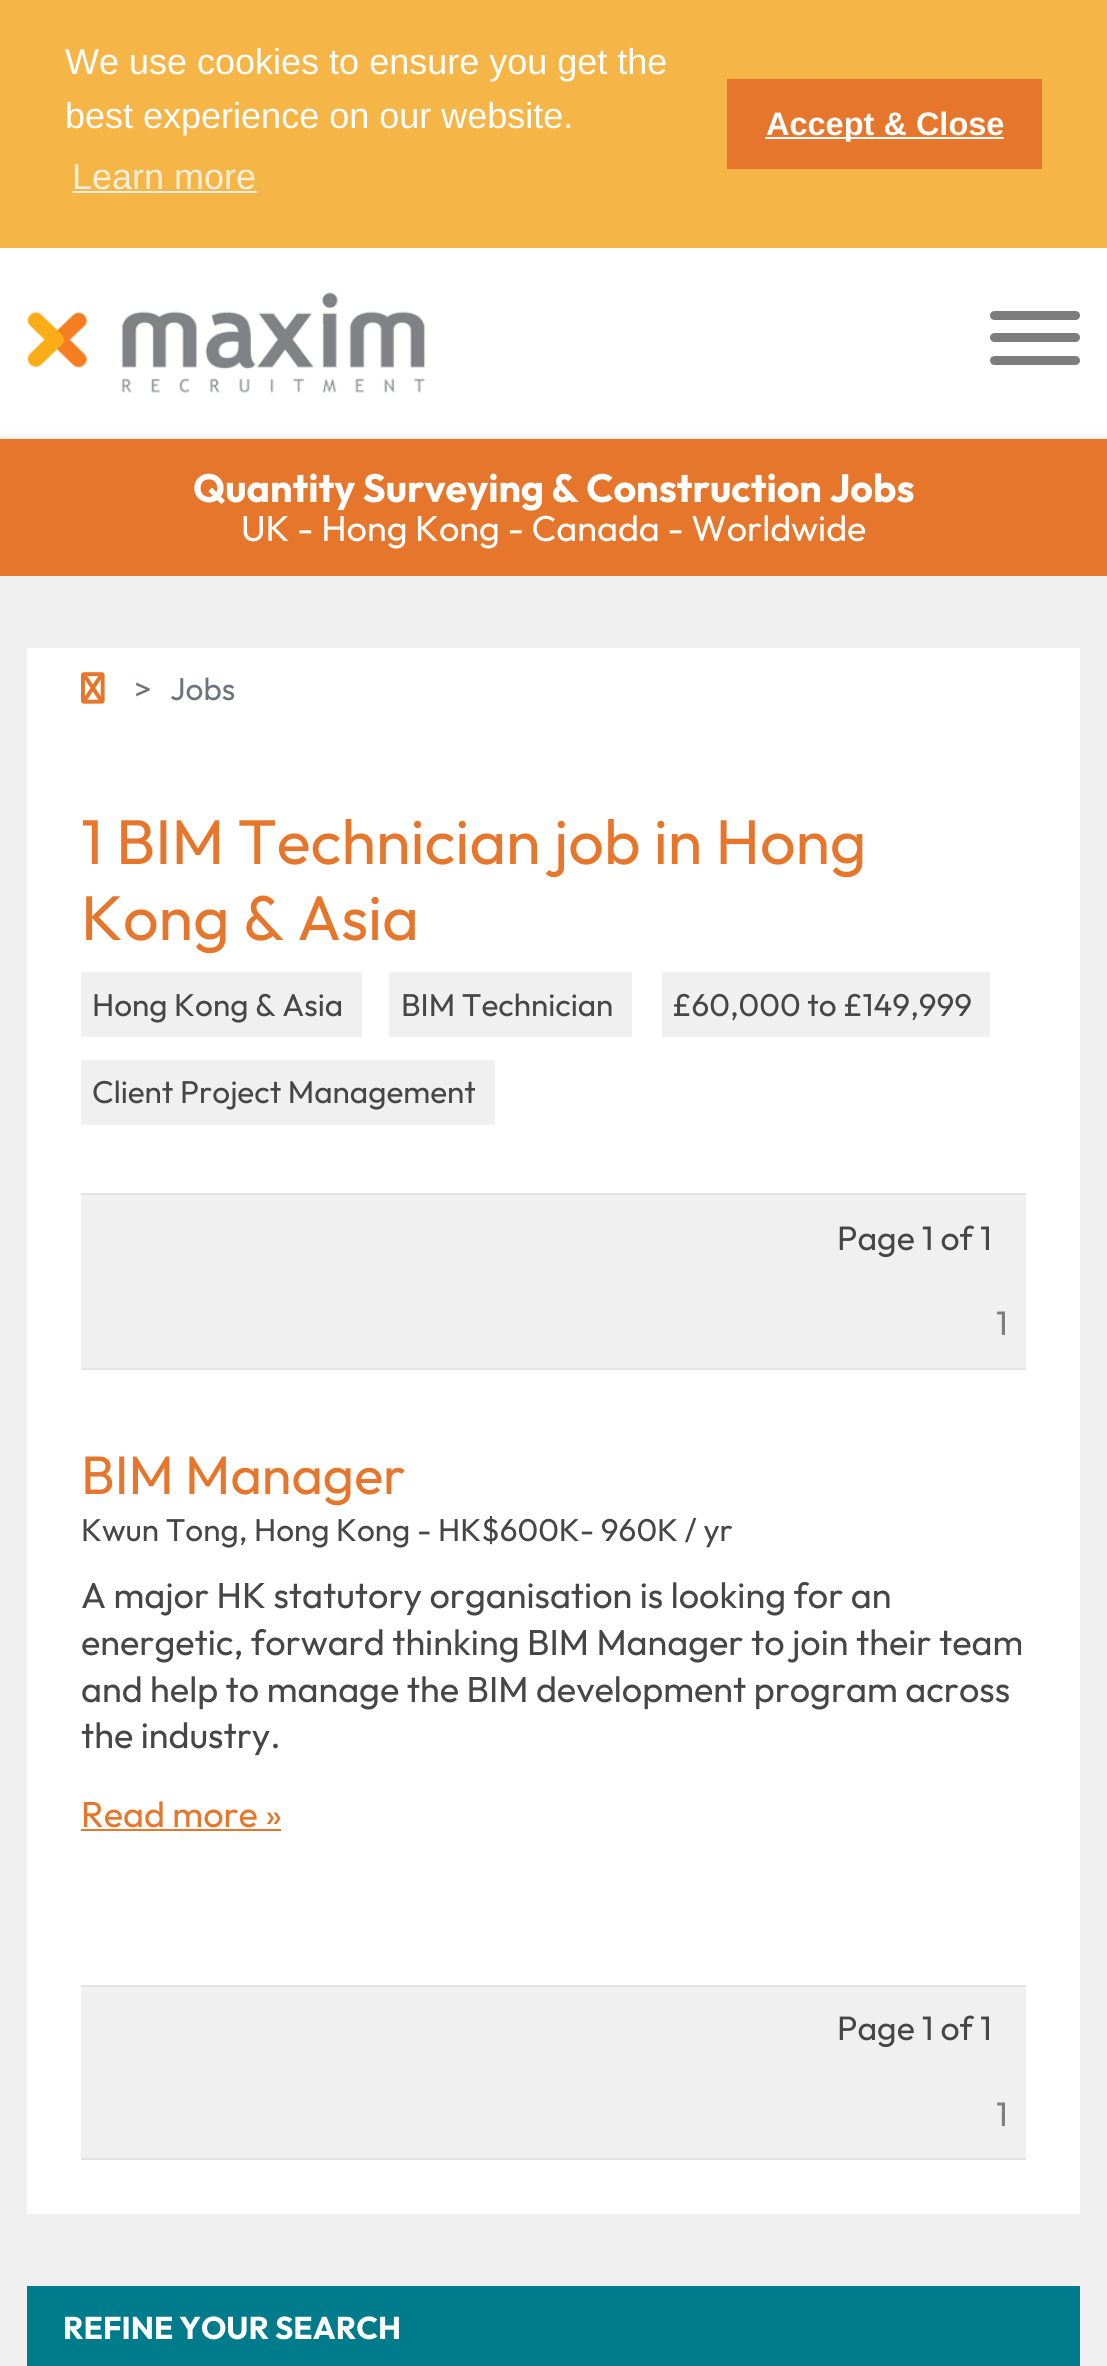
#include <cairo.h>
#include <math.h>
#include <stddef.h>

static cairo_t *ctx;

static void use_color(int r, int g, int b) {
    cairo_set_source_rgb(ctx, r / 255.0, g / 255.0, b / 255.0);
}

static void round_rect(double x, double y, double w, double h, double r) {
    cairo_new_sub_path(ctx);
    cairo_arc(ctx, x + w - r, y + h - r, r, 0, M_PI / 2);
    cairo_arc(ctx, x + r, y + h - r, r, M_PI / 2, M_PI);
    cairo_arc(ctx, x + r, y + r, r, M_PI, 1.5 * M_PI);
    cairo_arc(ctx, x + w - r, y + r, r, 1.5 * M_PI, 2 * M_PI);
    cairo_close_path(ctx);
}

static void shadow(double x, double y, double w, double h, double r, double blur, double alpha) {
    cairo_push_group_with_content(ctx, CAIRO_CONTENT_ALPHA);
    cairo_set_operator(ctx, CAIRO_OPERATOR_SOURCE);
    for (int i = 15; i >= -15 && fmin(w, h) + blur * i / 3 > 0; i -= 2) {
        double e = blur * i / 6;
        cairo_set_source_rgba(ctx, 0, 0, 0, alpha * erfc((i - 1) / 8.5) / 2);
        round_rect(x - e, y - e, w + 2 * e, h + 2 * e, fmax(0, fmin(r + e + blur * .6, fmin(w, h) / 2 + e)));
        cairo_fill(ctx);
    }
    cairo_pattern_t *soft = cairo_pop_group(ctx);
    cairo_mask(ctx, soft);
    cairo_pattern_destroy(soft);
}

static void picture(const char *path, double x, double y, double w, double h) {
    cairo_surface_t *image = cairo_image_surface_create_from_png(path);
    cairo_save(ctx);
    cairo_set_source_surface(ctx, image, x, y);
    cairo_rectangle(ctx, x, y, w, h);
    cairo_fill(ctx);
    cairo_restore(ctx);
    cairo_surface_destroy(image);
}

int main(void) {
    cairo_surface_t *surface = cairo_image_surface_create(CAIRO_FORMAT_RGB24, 1107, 2366);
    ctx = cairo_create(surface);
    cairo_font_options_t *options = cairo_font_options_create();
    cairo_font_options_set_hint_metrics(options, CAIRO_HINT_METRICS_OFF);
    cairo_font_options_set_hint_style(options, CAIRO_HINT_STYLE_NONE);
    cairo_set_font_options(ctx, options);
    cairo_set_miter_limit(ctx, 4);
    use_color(255, 255, 255);
    cairo_paint(ctx);
    use_color(245, 181, 71);
    cairo_rectangle(ctx, 0, 0, 1107, 248);
    cairo_fill(ctx);
    cairo_select_font_face(ctx, "Liberation Sans", CAIRO_FONT_SLANT_NORMAL, CAIRO_FONT_WEIGHT_NORMAL);
    cairo_set_font_size(ctx, 36);
    use_color(255, 255, 255);
    cairo_move_to(ctx, 65, 74);
    cairo_show_text(ctx, "We use cookies to ensure you get the");
    cairo_move_to(ctx, 65, 128);
    cairo_show_text(ctx, "best experience on our website.");
    use_color(253, 240, 218);
    cairo_move_to(ctx, 72, 189);
    cairo_show_text(ctx, "Learn more");
    cairo_rectangle(ctx, 72, 191, 185, 2);
    cairo_fill(ctx);
    use_color(230, 118, 43);
    cairo_rectangle(ctx, 727, 79, 315, 90);
    cairo_fill(ctx);
    use_color(255, 255, 255);
    cairo_rectangle(ctx, 765, 137, 239, 2);
    cairo_fill(ctx);
    cairo_select_font_face(ctx, "Liberation Sans", CAIRO_FONT_SLANT_NORMAL, CAIRO_FONT_WEIGHT_BOLD);
    cairo_set_font_size(ctx, 32.5);
    cairo_move_to(ctx, 766, 135);
    cairo_show_text(ctx, "Accept & Close");
    picture("img1.png", 27, 292, 399, 101);
    use_color(125, 125, 125);
    round_rect(990, 311, 90, 9, 4.5);
    cairo_fill(ctx);
    round_rect(990, 333, 90, 9, 4.5);
    cairo_fill(ctx);
    round_rect(990, 356, 90, 9, 4.5);
    cairo_fill(ctx);
    use_color(187, 187, 187);
    shadow(0, 441, 1107, 137, 0, 4.5, 1);
    use_color(230, 118, 43);
    cairo_rectangle(ctx, 0, 439, 1107, 137);
    cairo_fill(ctx);
    cairo_select_font_face(ctx, "Outfit", CAIRO_FONT_SLANT_NORMAL, CAIRO_FONT_WEIGHT_BOLD);
    cairo_set_font_size(ctx, 39.4);
    use_color(255, 255, 255);
    cairo_move_to(ctx, 193, 502);
    cairo_show_text(ctx, "Quantity Surveying & Construction Jobs");
    cairo_select_font_face(ctx, "Outfit", CAIRO_FONT_SLANT_NORMAL, CAIRO_FONT_WEIGHT_NORMAL);
    cairo_set_font_size(ctx, 36);
    cairo_move_to(ctx, 241, 541);
    cairo_show_text(ctx, "UK - Hong Kong - Canada - Worldwide");
    use_color(240, 240, 240);
    cairo_rectangle(ctx, 0, 576, 1107, 1790);
    cairo_fill(ctx);
    use_color(255, 255, 255);
    cairo_rectangle(ctx, 27, 648, 1053, 1566);
    cairo_fill(ctx);
    picture("img2.png", 81, 672, 24, 32);
    cairo_set_font_size(ctx, 31.5);
    use_color(108, 117, 125);
    cairo_move_to(ctx, 134, 700);
    cairo_show_text(ctx, ">");
    cairo_move_to(ctx, 170, 700);
    cairo_show_text(ctx, "Jobs");
    cairo_set_font_size(ctx, 63);
    use_color(230, 118, 43);
    cairo_move_to(ctx, 81, 864);
    cairo_show_text(ctx, "1 BIM Technician job in Hong");
    cairo_move_to(ctx, 81, 940);
    cairo_show_text(ctx, "Kong & Asia");
    use_color(240, 240, 240);
    cairo_rectangle(ctx, 81, 972, 281, 65);
    cairo_fill(ctx);
    cairo_set_font_size(ctx, 31.5);
    use_color(70, 70, 70);
    cairo_move_to(ctx, 92, 1016);
    cairo_show_text(ctx, "Hong Kong & Asia");
    use_color(240, 240, 240);
    cairo_rectangle(ctx, 389, 972, 243, 65);
    cairo_fill(ctx);
    use_color(70, 70, 70);
    cairo_move_to(ctx, 401, 1016);
    cairo_show_text(ctx, "BIM Technician");
    use_color(240, 240, 240);
    cairo_rectangle(ctx, 662, 972, 328, 65);
    cairo_fill(ctx);
    use_color(70, 70, 70);
    cairo_move_to(ctx, 672, 1016);
    cairo_show_text(ctx, "£60,000 to £149,999");
    use_color(240, 240, 240);
    cairo_rectangle(ctx, 81, 1060, 414, 65);
    cairo_fill(ctx);
    use_color(70, 70, 70);
    cairo_move_to(ctx, 92, 1103);
    cairo_show_text(ctx, "Client Project Management");
    use_color(240, 240, 240);
    cairo_rectangle(ctx, 81, 1195, 945, 173);
    cairo_fill(ctx);
    use_color(228, 228, 228);
    cairo_rectangle(ctx, 81, 1193, 945, 2);
    cairo_fill(ctx);
    cairo_rectangle(ctx, 81, 1368, 945, 2);
    cairo_fill(ctx);
    cairo_set_font_size(ctx, 33.75);
    use_color(70, 70, 70);
    cairo_move_to(ctx, 837, 1250);
    cairo_show_text(ctx, "Page 1 of 1");
    use_color(125, 125, 125);
    cairo_move_to(ctx, 996, 1335);
    cairo_show_text(ctx, "1");
    cairo_set_font_size(ctx, 54);
    use_color(230, 118, 43);
    cairo_move_to(ctx, 81, 1494);
    cairo_show_text(ctx, "BIM Manager");
    cairo_set_font_size(ctx, 31.5);
    use_color(70, 70, 70);
    cairo_move_to(ctx, 81, 1541);
    cairo_show_text(ctx, "Kwun Tong, Hong Kong - HK$600K- 960K / yr");
    cairo_set_font_size(ctx, 36);
    cairo_move_to(ctx, 81, 1608);
    cairo_show_text(ctx, "A major HK statutory organisation is looking for an");
    cairo_move_to(ctx, 81, 1655);
    cairo_show_text(ctx, "energetic, forward thinking BIM Manager to join their team");
    cairo_move_to(ctx, 81, 1702);
    cairo_show_text(ctx, "and help to manage the BIM development program across");
    cairo_move_to(ctx, 81, 1748);
    cairo_show_text(ctx, "the industry.");
    use_color(230, 118, 43);
    cairo_move_to(ctx, 81, 1827);
    cairo_show_text(ctx, "Read more »");
    cairo_rectangle(ctx, 81, 1829, 200, 2);
    cairo_fill(ctx);
    use_color(240, 240, 240);
    cairo_rectangle(ctx, 81, 1987, 945, 171);
    cairo_fill(ctx);
    use_color(228, 228, 228);
    cairo_rectangle(ctx, 81, 1985, 945, 2);
    cairo_fill(ctx);
    cairo_rectangle(ctx, 81, 2158, 945, 2);
    cairo_fill(ctx);
    cairo_set_font_size(ctx, 33.75);
    use_color(70, 70, 70);
    cairo_move_to(ctx, 837, 2040);
    cairo_show_text(ctx, "Page 1 of 1");
    use_color(125, 125, 125);
    cairo_move_to(ctx, 996, 2126);
    cairo_show_text(ctx, "1");
    use_color(0, 123, 139);
    cairo_rectangle(ctx, 27, 2286, 1053, 80);
    cairo_fill(ctx);
    cairo_select_font_face(ctx, "Outfit", CAIRO_FONT_SLANT_NORMAL, CAIRO_FONT_WEIGHT_BOLD);
    cairo_set_font_size(ctx, 31.5);
    use_color(255, 255, 255);
    cairo_move_to(ctx, 63, 2339);
    cairo_show_text(ctx, "REFINE YOUR SEARCH");
    cairo_surface_write_to_png(surface, "result.png");
    cairo_font_options_destroy(options);
    cairo_destroy(ctx);
    cairo_surface_destroy(surface);
    return 0;
}
